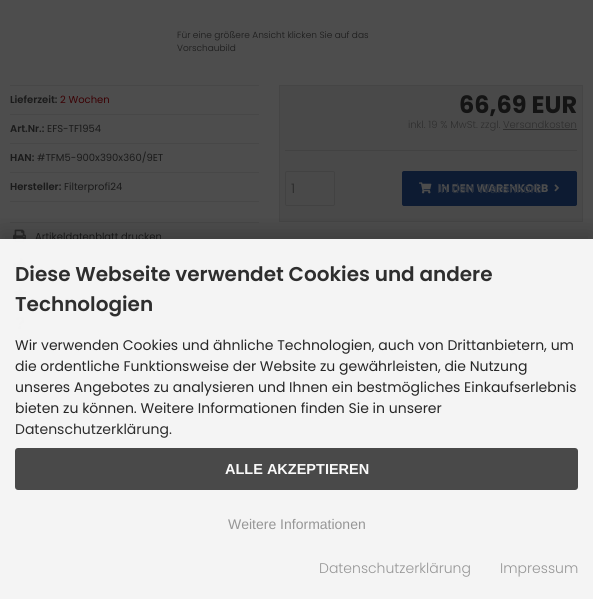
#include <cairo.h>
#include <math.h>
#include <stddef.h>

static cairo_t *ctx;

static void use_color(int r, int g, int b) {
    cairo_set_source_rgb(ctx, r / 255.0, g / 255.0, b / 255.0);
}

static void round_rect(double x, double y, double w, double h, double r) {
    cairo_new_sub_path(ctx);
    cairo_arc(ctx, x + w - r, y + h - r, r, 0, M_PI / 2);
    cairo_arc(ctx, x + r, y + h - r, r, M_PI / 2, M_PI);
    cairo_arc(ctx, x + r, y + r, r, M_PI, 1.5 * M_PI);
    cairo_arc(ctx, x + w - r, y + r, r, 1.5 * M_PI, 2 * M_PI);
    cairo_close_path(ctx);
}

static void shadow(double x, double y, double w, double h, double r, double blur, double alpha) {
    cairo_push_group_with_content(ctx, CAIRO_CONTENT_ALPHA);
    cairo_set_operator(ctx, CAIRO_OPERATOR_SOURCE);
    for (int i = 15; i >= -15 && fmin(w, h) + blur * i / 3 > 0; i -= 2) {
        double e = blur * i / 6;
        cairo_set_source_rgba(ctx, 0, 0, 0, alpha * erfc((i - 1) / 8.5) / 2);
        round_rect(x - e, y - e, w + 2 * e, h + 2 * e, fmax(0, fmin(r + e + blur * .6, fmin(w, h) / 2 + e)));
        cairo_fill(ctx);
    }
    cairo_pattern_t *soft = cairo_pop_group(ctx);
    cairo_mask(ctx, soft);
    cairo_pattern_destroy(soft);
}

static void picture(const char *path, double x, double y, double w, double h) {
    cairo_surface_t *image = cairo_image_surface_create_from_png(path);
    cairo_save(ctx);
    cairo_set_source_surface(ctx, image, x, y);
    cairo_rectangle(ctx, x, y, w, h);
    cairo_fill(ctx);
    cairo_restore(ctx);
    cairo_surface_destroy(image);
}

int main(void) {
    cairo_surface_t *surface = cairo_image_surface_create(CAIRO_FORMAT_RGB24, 593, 599);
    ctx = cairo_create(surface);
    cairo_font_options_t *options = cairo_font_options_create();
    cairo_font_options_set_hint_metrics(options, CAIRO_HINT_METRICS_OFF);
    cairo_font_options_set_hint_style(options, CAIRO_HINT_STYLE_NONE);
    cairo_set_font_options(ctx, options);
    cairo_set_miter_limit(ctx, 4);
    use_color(77, 77, 77);
    cairo_paint(ctx);
    cairo_select_font_face(ctx, "Poppins Light", CAIRO_FONT_SLANT_NORMAL, CAIRO_FONT_WEIGHT_NORMAL);
    cairo_set_font_size(ctx, 9);
    use_color(26, 26, 26);
    cairo_move_to(ctx, 177, 38);
    cairo_show_text(ctx, "Für eine größere Ansicht klicken Sie auf das");
    cairo_move_to(ctx, 177, 51);
    cairo_show_text(ctx, "Vorschaubild");
    use_color(71, 71, 71);
    cairo_rectangle(ctx, 10, 85, 249, 1);
    cairo_fill(ctx);
    cairo_rectangle(ctx, 10, 114, 249, 1);
    cairo_fill(ctx);
    cairo_select_font_face(ctx, "Poppins SemiBold", CAIRO_FONT_SLANT_NORMAL, CAIRO_FONT_WEIGHT_NORMAL);
    cairo_set_font_size(ctx, 10);
    use_color(26, 26, 26);
    cairo_move_to(ctx, 10, 103);
    cairo_show_text(ctx, "Lieferzeit:");
    cairo_select_font_face(ctx, "Poppins", CAIRO_FONT_SLANT_NORMAL, CAIRO_FONT_WEIGHT_NORMAL);
    use_color(59, 1, 4);
    cairo_move_to(ctx, 60, 103);
    cairo_show_text(ctx, "2 Wochen");
    use_color(71, 71, 71);
    cairo_rectangle(ctx, 10, 143, 249, 1);
    cairo_fill(ctx);
    cairo_select_font_face(ctx, "Poppins SemiBold", CAIRO_FONT_SLANT_NORMAL, CAIRO_FONT_WEIGHT_NORMAL);
    use_color(26, 26, 26);
    cairo_move_to(ctx, 10, 132);
    cairo_show_text(ctx, "Art.Nr.:");
    cairo_select_font_face(ctx, "Poppins", CAIRO_FONT_SLANT_NORMAL, CAIRO_FONT_WEIGHT_NORMAL);
    cairo_move_to(ctx, 47, 132);
    cairo_show_text(ctx, "EFS-TF1954");
    use_color(71, 71, 71);
    cairo_rectangle(ctx, 10, 172, 249, 1);
    cairo_fill(ctx);
    cairo_select_font_face(ctx, "Poppins SemiBold", CAIRO_FONT_SLANT_NORMAL, CAIRO_FONT_WEIGHT_NORMAL);
    use_color(26, 26, 26);
    cairo_move_to(ctx, 10, 161);
    cairo_show_text(ctx, "HAN:");
    cairo_select_font_face(ctx, "Poppins", CAIRO_FONT_SLANT_NORMAL, CAIRO_FONT_WEIGHT_NORMAL);
    cairo_move_to(ctx, 37, 161);
    cairo_show_text(ctx, "#TFM5-900x390x360/9ET");
    use_color(71, 71, 71);
    cairo_rectangle(ctx, 10, 201, 249, 1);
    cairo_fill(ctx);
    cairo_select_font_face(ctx, "Poppins SemiBold", CAIRO_FONT_SLANT_NORMAL, CAIRO_FONT_WEIGHT_NORMAL);
    use_color(26, 26, 26);
    cairo_move_to(ctx, 10, 190);
    cairo_show_text(ctx, "Hersteller:");
    cairo_select_font_face(ctx, "Poppins", CAIRO_FONT_SLANT_NORMAL, CAIRO_FONT_WEIGHT_NORMAL);
    cairo_move_to(ctx, 64, 190);
    cairo_show_text(ctx, "Filterprofi24");
    use_color(71, 71, 71);
    cairo_rectangle(ctx, 10, 222, 249, 1);
    cairo_fill(ctx);
    picture("img1.png", 13, 229, 13, 14);
    cairo_rectangle(ctx, 10, 251, 249, 1);
    cairo_fill(ctx);
    use_color(26, 26, 26);
    cairo_move_to(ctx, 35, 240);
    cairo_show_text(ctx, "Artikeldatenblatt drucken");
    picture("img2.png", 13, 257, 13, 14);
    use_color(71, 71, 71);
    cairo_rectangle(ctx, 10, 280, 249, 1);
    cairo_fill(ctx);
    cairo_rectangle(ctx, 10, 309, 249, 1);
    cairo_fill(ctx);
    picture("img3.png", 13, 286, 15, 14);
    picture("img4.png", 15, 316, 10, 14);
    cairo_rectangle(ctx, 10, 338, 249, 1);
    cairo_fill(ctx);
    use_color(73, 73, 73);
    cairo_rectangle(ctx, 279.5, 85.5, 303, 136);
    cairo_fill_preserve(ctx);
    use_color(69, 69, 69);
    cairo_set_line_width(ctx, 1);
    cairo_stroke(ctx);
    cairo_select_font_face(ctx, "Poppins", CAIRO_FONT_SLANT_NORMAL, CAIRO_FONT_WEIGHT_BOLD);
    cairo_set_font_size(ctx, 24);
    use_color(20, 20, 20);
    cairo_move_to(ctx, 459, 113);
    cairo_show_text(ctx, "66,69 EUR");
    cairo_select_font_face(ctx, "Poppins Light", CAIRO_FONT_SLANT_NORMAL, CAIRO_FONT_WEIGHT_NORMAL);
    cairo_set_font_size(ctx, 10);
    use_color(46, 46, 46);
    cairo_move_to(ctx, 408, 128);
    cairo_show_text(ctx, "inkl. 19 % MwSt. zzgl. Versandkosten");
    cairo_rectangle(ctx, 503, 129, 74, 1);
    cairo_fill(ctx);
    use_color(66, 66, 66);
    cairo_rectangle(ctx, 285, 150, 292, 1);
    cairo_fill(ctx);
    round_rect(285.5, 171.5, 49, 34, 1.5);
    cairo_stroke(ctx);
    cairo_select_font_face(ctx, "Poppins", CAIRO_FONT_SLANT_NORMAL, CAIRO_FONT_WEIGHT_NORMAL);
    cairo_set_font_size(ctx, 13);
    use_color(46, 46, 46);
    cairo_move_to(ctx, 291, 193);
    cairo_show_text(ctx, "1");
    use_color(13, 27, 50);
    round_rect(402.5, 171.5, 174, 34, 1.5);
    cairo_fill_preserve(ctx);
    cairo_stroke(ctx);
    picture("img5.png", 419, 182, 13, 12);
    cairo_select_font_face(ctx, "Poppins", CAIRO_FONT_SLANT_NORMAL, CAIRO_FONT_WEIGHT_BOLD);
    cairo_set_font_size(ctx, 11);
    use_color(77, 77, 77);
    cairo_move_to(ctx, 438, 192);
    cairo_show_text(ctx, "IN DEN WARENKORB");
    cairo_select_font_face(ctx, "Liberation Sans", CAIRO_FONT_SLANT_NORMAL, CAIRO_FONT_WEIGHT_NORMAL);
    cairo_set_font_size(ctx, 13.25);
    use_color(41, 49, 62);
    cairo_move_to(ctx, 437, 193);
    cairo_show_text(ctx, "In den Warenkorb");
    picture("img6.png", 554, 184, 5, 8);
    use_color(66, 66, 66);
    cairo_rectangle(ctx, 11, 449, 571, 94);
    cairo_fill(ctx);
    cairo_rectangle(ctx, 10, 400, 573, 1);
    cairo_fill(ctx);
    use_color(61, 61, 61);
    cairo_rectangle(ctx, 582, 400, 1, 49);
    cairo_fill(ctx);
    cairo_rectangle(ctx, 10, 448, 573, 1);
    cairo_fill(ctx);
    cairo_rectangle(ctx, 10, 400, 1, 49);
    cairo_fill(ctx);
    cairo_rectangle(ctx, 582, 448, 1, 96);
    cairo_fill(ctx);
    cairo_rectangle(ctx, 10, 495, 573, 1);
    cairo_fill(ctx);
    cairo_rectangle(ctx, 10, 448, 1, 48);
    cairo_fill(ctx);
    cairo_rectangle(ctx, 10, 543, 573, 1);
    cairo_fill(ctx);
    cairo_rectangle(ctx, 10, 496, 1, 48);
    cairo_fill(ctx);
    cairo_rectangle(ctx, 10.5, 544.5, 572, 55);
    use_color(66, 66, 66);
    cairo_stroke(ctx);
    cairo_rectangle(ctx, 21, 594, 551, 1);
    cairo_fill(ctx);
    cairo_save(ctx);
    cairo_rectangle(ctx, 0, 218, 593, 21);
    cairo_clip(ctx);
    use_color(0, 0, 0);
    shadow(0, 231, 593, 360, 0, 10, 0.19);
    cairo_restore(ctx);
    cairo_set_source_rgba(ctx, 0.976, 0.976, 0.976, 0.97);
    cairo_rectangle(ctx, 0, 239, 593, 360);
    cairo_fill(ctx);
    cairo_select_font_face(ctx, "Poppins SemiBold", CAIRO_FONT_SLANT_NORMAL, CAIRO_FONT_WEIGHT_NORMAL);
    cairo_set_font_size(ctx, 20);
    use_color(46, 46, 46);
    cairo_move_to(ctx, 15, 281);
    cairo_show_text(ctx, "Diese Webseite verwendet Cookies und andere");
    cairo_move_to(ctx, 15, 311);
    cairo_show_text(ctx, "Technologien");
    cairo_select_font_face(ctx, "Poppins", CAIRO_FONT_SLANT_NORMAL, CAIRO_FONT_WEIGHT_NORMAL);
    cairo_set_font_size(ctx, 14);
    use_color(39, 39, 39);
    cairo_move_to(ctx, 15, 350);
    cairo_show_text(ctx, "Wir verwenden Cookies und ähnliche Technologien, auch von Drittanbietern, um");
    cairo_move_to(ctx, 15, 371);
    cairo_show_text(ctx, "die ordentliche Funktionsweise der Website zu gewährleisten, die Nutzung");
    cairo_move_to(ctx, 15, 392);
    cairo_show_text(ctx, "unseres Angebotes zu analysieren und Ihnen ein bestmögliches Einkaufserlebnis");
    cairo_move_to(ctx, 15, 413);
    cairo_show_text(ctx, "bieten zu können. Weitere Informationen finden Sie in unserer");
    use_color(46, 46, 46);
    cairo_move_to(ctx, 15, 434);
    cairo_show_text(ctx, "Datenschutzerklärung.");
    use_color(73, 73, 73);
    round_rect(15, 448, 563, 42, 3);
    cairo_fill(ctx);
    cairo_select_font_face(ctx, "Liberation Sans", CAIRO_FONT_SLANT_NORMAL, CAIRO_FONT_WEIGHT_BOLD);
    cairo_set_font_size(ctx, 14.5);
    use_color(249, 249, 249);
    cairo_move_to(ctx, 225, 474);
    cairo_show_text(ctx, "ALLE AKZEPTIEREN");
    cairo_select_font_face(ctx, "Liberation Sans", CAIRO_FONT_SLANT_NORMAL, CAIRO_FONT_WEIGHT_NORMAL);
    cairo_set_font_size(ctx, 14);
    use_color(150, 150, 150);
    cairo_move_to(ctx, 228, 529);
    cairo_show_text(ctx, "Weitere Informationen");
    cairo_select_font_face(ctx, "Poppins Light", CAIRO_FONT_SLANT_NORMAL, CAIRO_FONT_WEIGHT_NORMAL);
    cairo_move_to(ctx, 319, 573);
    cairo_show_text(ctx, "Datenschutzerklärung");
    cairo_move_to(ctx, 500, 573);
    cairo_show_text(ctx, "Impressum");
    cairo_surface_write_to_png(surface, "result.png");
    cairo_font_options_destroy(options);
    cairo_destroy(ctx);
    cairo_surface_destroy(surface);
    return 0;
}
